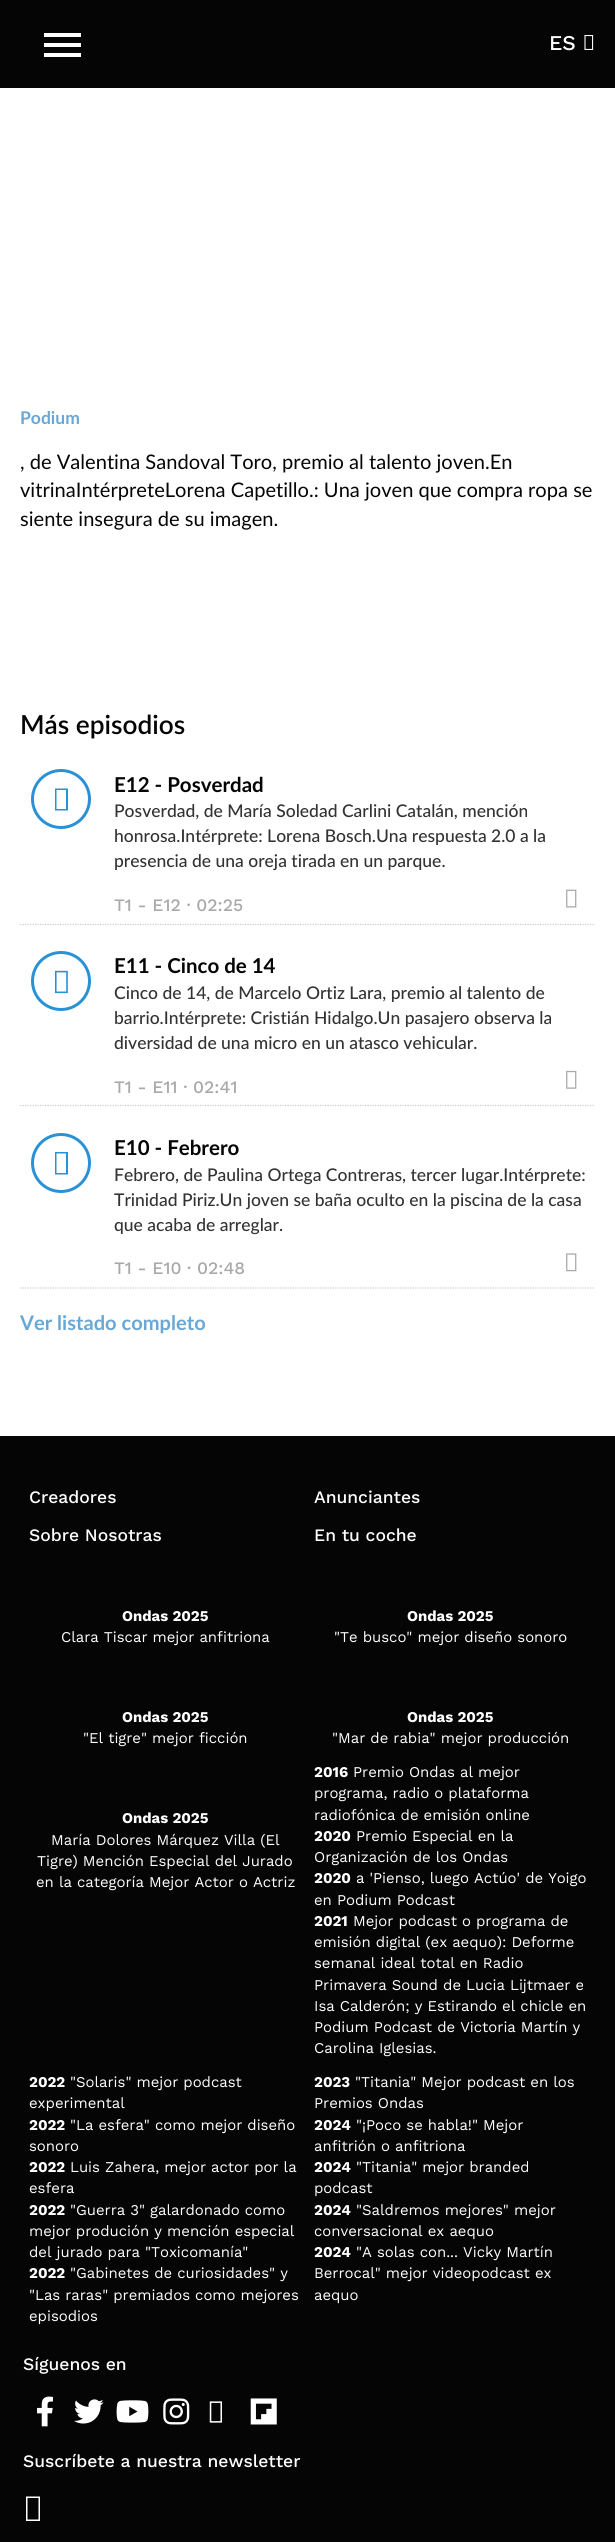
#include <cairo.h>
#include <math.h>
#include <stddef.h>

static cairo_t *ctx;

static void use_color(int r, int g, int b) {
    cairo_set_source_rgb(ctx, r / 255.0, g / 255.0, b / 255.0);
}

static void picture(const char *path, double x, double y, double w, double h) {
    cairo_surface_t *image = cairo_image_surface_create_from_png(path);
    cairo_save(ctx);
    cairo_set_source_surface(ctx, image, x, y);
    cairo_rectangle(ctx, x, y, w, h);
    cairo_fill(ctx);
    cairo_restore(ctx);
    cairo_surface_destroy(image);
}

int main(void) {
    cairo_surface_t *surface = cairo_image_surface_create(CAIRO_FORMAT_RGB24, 615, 2542);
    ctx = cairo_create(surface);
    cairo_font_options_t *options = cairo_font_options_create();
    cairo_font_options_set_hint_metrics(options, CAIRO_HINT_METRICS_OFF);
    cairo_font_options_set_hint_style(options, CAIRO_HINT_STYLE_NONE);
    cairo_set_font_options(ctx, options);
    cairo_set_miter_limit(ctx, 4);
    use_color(255, 255, 255);
    cairo_paint(ctx);
    use_color(5, 5, 5);
    cairo_rectangle(ctx, 0, 0, 615, 88);
    cairo_fill(ctx);
    use_color(255, 255, 255);
    cairo_rectangle(ctx, 44, 43, 37, 4);
    cairo_fill(ctx);
    cairo_rectangle(ctx, 44, 33, 37, 4);
    cairo_fill(ctx);
    cairo_rectangle(ctx, 44, 53, 37, 4);
    cairo_fill(ctx);
    cairo_select_font_face(ctx, "Work Sans Medium", CAIRO_FONT_SLANT_NORMAL, CAIRO_FONT_WEIGHT_NORMAL);
    cairo_set_font_size(ctx, 21);
    cairo_move_to(ctx, 549, 50);
    cairo_show_text(ctx, "ES");
    picture("img1.png", 584, 35, 10, 15);
    cairo_select_font_face(ctx, "Lato", CAIRO_FONT_SLANT_NORMAL, CAIRO_FONT_WEIGHT_BOLD);
    cairo_set_font_size(ctx, 17.5);
    use_color(105, 168, 212);
    cairo_move_to(ctx, 20, 424);
    cairo_show_text(ctx, "Podium");
    cairo_select_font_face(ctx, "Lato", CAIRO_FONT_SLANT_NORMAL, CAIRO_FONT_WEIGHT_NORMAL);
    cairo_set_font_size(ctx, 20.1);
    use_color(5, 5, 5);
    cairo_move_to(ctx, 20, 469);
    cairo_show_text(ctx, ", de Valentina Sandoval Toro, premio al talento joven.En");
    cairo_move_to(ctx, 20, 497);
    cairo_show_text(ctx, "vitrinaIntérpreteLorena Capetillo.: Una joven que compra ropa se");
    cairo_move_to(ctx, 20, 526);
    cairo_show_text(ctx, "siente insegura de su imagen.");
    cairo_select_font_face(ctx, "Lato SemiBold", CAIRO_FONT_SLANT_NORMAL, CAIRO_FONT_WEIGHT_NORMAL);
    cairo_set_font_size(ctx, 26.25);
    cairo_move_to(ctx, 20, 734);
    cairo_show_text(ctx, "Más episodios");
    cairo_new_path(ctx);
    cairo_move_to(ctx, 20, 924.5);
    cairo_line_to(ctx, 595, 924.5);
    use_color(204, 204, 204);
    cairo_set_line_width(ctx, 1.2);
    cairo_set_dash(ctx, (double[]){1.25, 1.25}, 2, 0);
    cairo_stroke(ctx);
    cairo_arc(ctx, 61, 799, 28.5, 0, 2 * M_PI);
    use_color(41, 145, 214);
    cairo_set_line_width(ctx, 3);
    cairo_set_dash(ctx, NULL, 0, 0);
    cairo_stroke(ctx);
    cairo_new_path(ctx);
    cairo_move_to(ctx, 55, 810.5);
    cairo_line_to(ctx, 55, 788.5);
    cairo_line_to(ctx, 68, 788.5);
    cairo_line_to(ctx, 68, 810.5);
    cairo_close_path(ctx);
    cairo_move_to(ctx, 56.5, 809);
    cairo_line_to(ctx, 66, 809);
    cairo_line_to(ctx, 66, 790);
    cairo_line_to(ctx, 56.5, 790);
    cairo_close_path(ctx);
    cairo_fill(ctx);
    cairo_select_font_face(ctx, "Lato", CAIRO_FONT_SLANT_NORMAL, CAIRO_FONT_WEIGHT_BOLD);
    cairo_set_font_size(ctx, 20.5);
    use_color(5, 5, 5);
    cairo_move_to(ctx, 114, 792);
    cairo_show_text(ctx, "E12 - Posverdad");
    cairo_select_font_face(ctx, "Lato Medium", CAIRO_FONT_SLANT_NORMAL, CAIRO_FONT_WEIGHT_NORMAL);
    cairo_set_font_size(ctx, 17.5);
    use_color(51, 51, 51);
    cairo_move_to(ctx, 114, 817);
    cairo_show_text(ctx, "Posverdad, de María Soledad Carlini Catalán, mención");
    cairo_move_to(ctx, 114, 842);
    cairo_show_text(ctx, "honrosa.Intérprete: Lorena Bosch.Una respuesta 2.0 a la");
    cairo_move_to(ctx, 114, 867);
    cairo_show_text(ctx, "presencia de una oreja tirada en un parque.");
    cairo_select_font_face(ctx, "Work Sans Medium", CAIRO_FONT_SLANT_NORMAL, CAIRO_FONT_WEIGHT_NORMAL);
    use_color(169, 169, 169);
    cairo_move_to(ctx, 114, 911);
    cairo_show_text(ctx, "T1 - E12 · 02:25");
    picture("img2.png", 566, 889, 11, 19);
    cairo_new_path(ctx);
    cairo_move_to(ctx, 20, 1105.5);
    cairo_line_to(ctx, 595, 1105.5);
    use_color(204, 204, 204);
    cairo_set_line_width(ctx, 1.2);
    cairo_set_dash(ctx, (double[]){1.25, 1.25}, 2, 0);
    cairo_stroke(ctx);
    cairo_arc(ctx, 61, 981, 28.5, 0, 2 * M_PI);
    use_color(41, 145, 214);
    cairo_set_line_width(ctx, 3);
    cairo_set_dash(ctx, NULL, 0, 0);
    cairo_stroke(ctx);
    picture("img3.png", 54, 970, 14, 24);
    cairo_select_font_face(ctx, "Lato", CAIRO_FONT_SLANT_NORMAL, CAIRO_FONT_WEIGHT_BOLD);
    cairo_set_font_size(ctx, 20.5);
    use_color(5, 5, 5);
    cairo_move_to(ctx, 114, 973);
    cairo_show_text(ctx, "E11 - Cinco de 14");
    cairo_select_font_face(ctx, "Lato Medium", CAIRO_FONT_SLANT_NORMAL, CAIRO_FONT_WEIGHT_NORMAL);
    cairo_set_font_size(ctx, 17.5);
    use_color(51, 51, 51);
    cairo_move_to(ctx, 114, 999);
    cairo_show_text(ctx, "Cinco de 14, de Marcelo Ortiz Lara, premio al talento de");
    cairo_move_to(ctx, 114, 1024);
    cairo_show_text(ctx, "barrio.Intérprete: Cristián Hidalgo.Un pasajero observa la");
    cairo_move_to(ctx, 114, 1049);
    cairo_show_text(ctx, "diversidad de una micro en un atasco vehicular.");
    cairo_select_font_face(ctx, "Work Sans Medium", CAIRO_FONT_SLANT_NORMAL, CAIRO_FONT_WEIGHT_NORMAL);
    use_color(169, 169, 169);
    cairo_move_to(ctx, 114, 1093);
    cairo_show_text(ctx, "T1 - E11 · 02:41");
    picture("img4.png", 566, 1070, 11, 19);
    cairo_new_path(ctx);
    cairo_move_to(ctx, 20, 1288);
    cairo_line_to(ctx, 595, 1288);
    use_color(204, 204, 204);
    cairo_set_line_width(ctx, 1.2);
    cairo_set_dash(ctx, (double[]){1.25, 1.25}, 2, 0);
    cairo_stroke(ctx);
    cairo_arc(ctx, 61, 1163, 28.5, 0, 2 * M_PI);
    use_color(41, 145, 214);
    cairo_set_line_width(ctx, 3);
    cairo_set_dash(ctx, NULL, 0, 0);
    cairo_stroke(ctx);
    cairo_new_path(ctx);
    cairo_move_to(ctx, 55, 1174.5);
    cairo_line_to(ctx, 55, 1152);
    cairo_line_to(ctx, 68, 1152);
    cairo_line_to(ctx, 68, 1174.5);
    cairo_close_path(ctx);
    cairo_move_to(ctx, 56.5, 1173);
    cairo_line_to(ctx, 66, 1173);
    cairo_line_to(ctx, 66, 1153.5);
    cairo_line_to(ctx, 56.5, 1153.5);
    cairo_close_path(ctx);
    cairo_fill(ctx);
    cairo_select_font_face(ctx, "Lato", CAIRO_FONT_SLANT_NORMAL, CAIRO_FONT_WEIGHT_BOLD);
    cairo_set_font_size(ctx, 20.5);
    use_color(5, 5, 5);
    cairo_move_to(ctx, 114, 1155);
    cairo_show_text(ctx, "E10 - Febrero");
    cairo_select_font_face(ctx, "Lato Medium", CAIRO_FONT_SLANT_NORMAL, CAIRO_FONT_WEIGHT_NORMAL);
    cairo_set_font_size(ctx, 17.5);
    use_color(51, 51, 51);
    cairo_move_to(ctx, 114, 1181);
    cairo_show_text(ctx, "Febrero, de Paulina Ortega Contreras, tercer lugar.Intérprete:");
    cairo_move_to(ctx, 114, 1206);
    cairo_show_text(ctx, "Trinidad Piriz.Un joven se baña oculto en la piscina de la casa");
    cairo_move_to(ctx, 114, 1231);
    cairo_show_text(ctx, "que acaba de arreglar.");
    cairo_select_font_face(ctx, "Work Sans Medium", CAIRO_FONT_SLANT_NORMAL, CAIRO_FONT_WEIGHT_NORMAL);
    use_color(169, 169, 169);
    cairo_move_to(ctx, 114, 1274);
    cairo_show_text(ctx, "T1 - E10 · 02:48");
    picture("img5.png", 566, 1253, 11, 19);
    cairo_select_font_face(ctx, "Lato", CAIRO_FONT_SLANT_NORMAL, CAIRO_FONT_WEIGHT_BOLD);
    cairo_set_font_size(ctx, 20.1);
    use_color(105, 168, 212);
    cairo_move_to(ctx, 20, 1330);
    cairo_show_text(ctx, "Ver listado completo");
    use_color(5, 5, 5);
    cairo_rectangle(ctx, 0, 1436, 615, 1106);
    cairo_fill(ctx);
    cairo_select_font_face(ctx, "Work Sans Medium", CAIRO_FONT_SLANT_NORMAL, CAIRO_FONT_WEIGHT_NORMAL);
    cairo_set_font_size(ctx, 17.5);
    use_color(255, 255, 255);
    cairo_move_to(ctx, 29, 1503);
    cairo_show_text(ctx, "Creadores");
    cairo_move_to(ctx, 314, 1503);
    cairo_show_text(ctx, "Anunciantes");
    cairo_move_to(ctx, 29, 1541);
    cairo_show_text(ctx, "Sobre Nosotras");
    cairo_move_to(ctx, 314, 1541);
    cairo_show_text(ctx, "En tu coche");
    cairo_select_font_face(ctx, "Work Sans", CAIRO_FONT_SLANT_NORMAL, CAIRO_FONT_WEIGHT_BOLD);
    cairo_set_font_size(ctx, 14.9);
    cairo_move_to(ctx, 122, 1621);
    cairo_show_text(ctx, "Ondas 2025");
    cairo_select_font_face(ctx, "Work Sans", CAIRO_FONT_SLANT_NORMAL, CAIRO_FONT_WEIGHT_NORMAL);
    cairo_move_to(ctx, 61, 1642);
    cairo_show_text(ctx, "Clara Tiscar mejor anfitriona");
    cairo_select_font_face(ctx, "Work Sans", CAIRO_FONT_SLANT_NORMAL, CAIRO_FONT_WEIGHT_BOLD);
    cairo_move_to(ctx, 407, 1621);
    cairo_show_text(ctx, "Ondas 2025");
    cairo_select_font_face(ctx, "Work Sans", CAIRO_FONT_SLANT_NORMAL, CAIRO_FONT_WEIGHT_NORMAL);
    cairo_move_to(ctx, 334, 1642);
    cairo_show_text(ctx, "\"Te busco\" mejor diseño sonoro");
    cairo_select_font_face(ctx, "Work Sans", CAIRO_FONT_SLANT_NORMAL, CAIRO_FONT_WEIGHT_BOLD);
    cairo_move_to(ctx, 122, 1722);
    cairo_show_text(ctx, "Ondas 2025");
    cairo_select_font_face(ctx, "Work Sans", CAIRO_FONT_SLANT_NORMAL, CAIRO_FONT_WEIGHT_NORMAL);
    cairo_move_to(ctx, 83, 1743);
    cairo_show_text(ctx, "\"El tigre\" mejor ficción");
    cairo_select_font_face(ctx, "Work Sans", CAIRO_FONT_SLANT_NORMAL, CAIRO_FONT_WEIGHT_BOLD);
    cairo_move_to(ctx, 407, 1722);
    cairo_show_text(ctx, "Ondas 2025");
    cairo_select_font_face(ctx, "Work Sans", CAIRO_FONT_SLANT_NORMAL, CAIRO_FONT_WEIGHT_NORMAL);
    cairo_move_to(ctx, 332, 1743);
    cairo_show_text(ctx, "\"Mar de rabia\" mejor producción");
    cairo_select_font_face(ctx, "Work Sans", CAIRO_FONT_SLANT_NORMAL, CAIRO_FONT_WEIGHT_BOLD);
    cairo_move_to(ctx, 122, 1823);
    cairo_show_text(ctx, "Ondas 2025");
    cairo_select_font_face(ctx, "Work Sans", CAIRO_FONT_SLANT_NORMAL, CAIRO_FONT_WEIGHT_NORMAL);
    cairo_move_to(ctx, 51, 1845);
    cairo_show_text(ctx, "María Dolores Márquez Villa (El");
    cairo_move_to(ctx, 37, 1866);
    cairo_show_text(ctx, "Tigre) Mención Especial del Jurado");
    cairo_move_to(ctx, 36, 1887);
    cairo_show_text(ctx, "en la categoría Mejor Actor o Actriz");
    cairo_select_font_face(ctx, "Work Sans", CAIRO_FONT_SLANT_NORMAL, CAIRO_FONT_WEIGHT_BOLD);
    cairo_move_to(ctx, 314, 1777);
    cairo_show_text(ctx, "2016");
    cairo_select_font_face(ctx, "Work Sans", CAIRO_FONT_SLANT_NORMAL, CAIRO_FONT_WEIGHT_NORMAL);
    cairo_move_to(ctx, 353, 1777);
    cairo_show_text(ctx, "Premio Ondas al mejor");
    cairo_move_to(ctx, 314, 1798);
    cairo_show_text(ctx, "programa, radio o plataforma");
    cairo_move_to(ctx, 314, 1820);
    cairo_show_text(ctx, "radiofónica de emisión online");
    cairo_select_font_face(ctx, "Work Sans", CAIRO_FONT_SLANT_NORMAL, CAIRO_FONT_WEIGHT_BOLD);
    cairo_move_to(ctx, 314, 1841);
    cairo_show_text(ctx, "2020");
    cairo_select_font_face(ctx, "Work Sans", CAIRO_FONT_SLANT_NORMAL, CAIRO_FONT_WEIGHT_NORMAL);
    cairo_move_to(ctx, 356, 1841);
    cairo_show_text(ctx, "Premio Especial en la");
    cairo_move_to(ctx, 314, 1862);
    cairo_show_text(ctx, "Organización de los Ondas");
    cairo_select_font_face(ctx, "Work Sans", CAIRO_FONT_SLANT_NORMAL, CAIRO_FONT_WEIGHT_BOLD);
    cairo_move_to(ctx, 314, 1883);
    cairo_show_text(ctx, "2020");
    cairo_select_font_face(ctx, "Work Sans", CAIRO_FONT_SLANT_NORMAL, CAIRO_FONT_WEIGHT_NORMAL);
    cairo_move_to(ctx, 356, 1883);
    cairo_show_text(ctx, "a 'Pienso, luego Actúo' de Yoigo");
    cairo_move_to(ctx, 314, 1905);
    cairo_show_text(ctx, "en Podium Podcast");
    cairo_select_font_face(ctx, "Work Sans", CAIRO_FONT_SLANT_NORMAL, CAIRO_FONT_WEIGHT_BOLD);
    cairo_move_to(ctx, 314, 1926);
    cairo_show_text(ctx, "2021");
    cairo_select_font_face(ctx, "Work Sans", CAIRO_FONT_SLANT_NORMAL, CAIRO_FONT_WEIGHT_NORMAL);
    cairo_move_to(ctx, 353, 1926);
    cairo_show_text(ctx, "Mejor podcast o programa de");
    cairo_move_to(ctx, 314, 1947);
    cairo_show_text(ctx, "emisión digital (ex aequo): Deforme");
    cairo_move_to(ctx, 314, 1968);
    cairo_show_text(ctx, "semanal ideal total en Radio");
    cairo_move_to(ctx, 314, 1990);
    cairo_show_text(ctx, "Primavera Sound de Lucia Lijtmaer e");
    cairo_move_to(ctx, 314, 2011);
    cairo_show_text(ctx, "Isa Calderón; y Estirando el chicle en");
    cairo_move_to(ctx, 314, 2032);
    cairo_show_text(ctx, "Podium Podcast de Victoria Martín y");
    cairo_move_to(ctx, 314, 2053);
    cairo_show_text(ctx, "Carolina Iglesias.");
    cairo_select_font_face(ctx, "Work Sans", CAIRO_FONT_SLANT_NORMAL, CAIRO_FONT_WEIGHT_BOLD);
    cairo_move_to(ctx, 29, 2087);
    cairo_show_text(ctx, "2022");
    cairo_select_font_face(ctx, "Work Sans", CAIRO_FONT_SLANT_NORMAL, CAIRO_FONT_WEIGHT_NORMAL);
    cairo_move_to(ctx, 70, 2087);
    cairo_show_text(ctx, "\"Solaris\" mejor podcast");
    cairo_move_to(ctx, 29, 2108);
    cairo_show_text(ctx, "experimental");
    cairo_select_font_face(ctx, "Work Sans", CAIRO_FONT_SLANT_NORMAL, CAIRO_FONT_WEIGHT_BOLD);
    cairo_move_to(ctx, 29, 2130);
    cairo_show_text(ctx, "2022");
    cairo_select_font_face(ctx, "Work Sans", CAIRO_FONT_SLANT_NORMAL, CAIRO_FONT_WEIGHT_NORMAL);
    cairo_move_to(ctx, 70, 2130);
    cairo_show_text(ctx, "\"La esfera\" como mejor diseño");
    cairo_move_to(ctx, 29, 2151);
    cairo_show_text(ctx, "sonoro");
    cairo_select_font_face(ctx, "Work Sans", CAIRO_FONT_SLANT_NORMAL, CAIRO_FONT_WEIGHT_BOLD);
    cairo_move_to(ctx, 29, 2172);
    cairo_show_text(ctx, "2022");
    cairo_select_font_face(ctx, "Work Sans", CAIRO_FONT_SLANT_NORMAL, CAIRO_FONT_WEIGHT_NORMAL);
    cairo_move_to(ctx, 70, 2172);
    cairo_show_text(ctx, "Luis Zahera, mejor actor por la");
    cairo_move_to(ctx, 29, 2193);
    cairo_show_text(ctx, "esfera");
    cairo_select_font_face(ctx, "Work Sans", CAIRO_FONT_SLANT_NORMAL, CAIRO_FONT_WEIGHT_BOLD);
    cairo_move_to(ctx, 29, 2215);
    cairo_show_text(ctx, "2022");
    cairo_select_font_face(ctx, "Work Sans", CAIRO_FONT_SLANT_NORMAL, CAIRO_FONT_WEIGHT_NORMAL);
    cairo_move_to(ctx, 70, 2215);
    cairo_show_text(ctx, "\"Guerra 3\" galardonado como");
    cairo_move_to(ctx, 29, 2236);
    cairo_show_text(ctx, "mejor produción y mención especial");
    cairo_move_to(ctx, 29, 2257);
    cairo_show_text(ctx, "del jurado para \"Toxicomanía\"");
    cairo_select_font_face(ctx, "Work Sans", CAIRO_FONT_SLANT_NORMAL, CAIRO_FONT_WEIGHT_BOLD);
    cairo_move_to(ctx, 29, 2278);
    cairo_show_text(ctx, "2022");
    cairo_select_font_face(ctx, "Work Sans", CAIRO_FONT_SLANT_NORMAL, CAIRO_FONT_WEIGHT_NORMAL);
    cairo_move_to(ctx, 70, 2278);
    cairo_show_text(ctx, "\"Gabinetes de curiosidades\" y");
    cairo_move_to(ctx, 29, 2300);
    cairo_show_text(ctx, "\"Las raras\" premiados como mejores");
    cairo_move_to(ctx, 29, 2321);
    cairo_show_text(ctx, "episodios");
    cairo_select_font_face(ctx, "Work Sans", CAIRO_FONT_SLANT_NORMAL, CAIRO_FONT_WEIGHT_BOLD);
    cairo_move_to(ctx, 314, 2087);
    cairo_show_text(ctx, "2023");
    cairo_select_font_face(ctx, "Work Sans", CAIRO_FONT_SLANT_NORMAL, CAIRO_FONT_WEIGHT_NORMAL);
    cairo_move_to(ctx, 355, 2087);
    cairo_show_text(ctx, "\"Titania\" Mejor podcast en los");
    cairo_move_to(ctx, 314, 2108);
    cairo_show_text(ctx, "Premios Ondas");
    cairo_select_font_face(ctx, "Work Sans", CAIRO_FONT_SLANT_NORMAL, CAIRO_FONT_WEIGHT_BOLD);
    cairo_move_to(ctx, 314, 2130);
    cairo_show_text(ctx, "2024");
    cairo_select_font_face(ctx, "Work Sans", CAIRO_FONT_SLANT_NORMAL, CAIRO_FONT_WEIGHT_NORMAL);
    cairo_move_to(ctx, 356, 2130);
    cairo_show_text(ctx, "\"¡Poco se habla!\" Mejor");
    cairo_move_to(ctx, 314, 2151);
    cairo_show_text(ctx, "anfitrión o anfitriona");
    cairo_select_font_face(ctx, "Work Sans", CAIRO_FONT_SLANT_NORMAL, CAIRO_FONT_WEIGHT_BOLD);
    cairo_move_to(ctx, 314, 2172);
    cairo_show_text(ctx, "2024");
    cairo_select_font_face(ctx, "Work Sans", CAIRO_FONT_SLANT_NORMAL, CAIRO_FONT_WEIGHT_NORMAL);
    cairo_move_to(ctx, 356, 2172);
    cairo_show_text(ctx, "\"Titania\" mejor branded");
    cairo_move_to(ctx, 314, 2193);
    cairo_show_text(ctx, "podcast");
    cairo_select_font_face(ctx, "Work Sans", CAIRO_FONT_SLANT_NORMAL, CAIRO_FONT_WEIGHT_BOLD);
    cairo_move_to(ctx, 314, 2215);
    cairo_show_text(ctx, "2024");
    cairo_select_font_face(ctx, "Work Sans", CAIRO_FONT_SLANT_NORMAL, CAIRO_FONT_WEIGHT_NORMAL);
    cairo_move_to(ctx, 356, 2215);
    cairo_show_text(ctx, "\"Saldremos mejores\" mejor");
    cairo_move_to(ctx, 314, 2236);
    cairo_show_text(ctx, "conversacional ex aequo");
    cairo_select_font_face(ctx, "Work Sans", CAIRO_FONT_SLANT_NORMAL, CAIRO_FONT_WEIGHT_BOLD);
    cairo_move_to(ctx, 314, 2257);
    cairo_show_text(ctx, "2024");
    cairo_select_font_face(ctx, "Work Sans", CAIRO_FONT_SLANT_NORMAL, CAIRO_FONT_WEIGHT_NORMAL);
    cairo_move_to(ctx, 356, 2257);
    cairo_show_text(ctx, "\"A solas con... Vicky Martín");
    cairo_move_to(ctx, 314, 2278);
    cairo_show_text(ctx, "Berrocal\" mejor videopodcast ex");
    cairo_move_to(ctx, 314, 2300);
    cairo_show_text(ctx, "aequo");
    cairo_select_font_face(ctx, "Work Sans Medium", CAIRO_FONT_SLANT_NORMAL, CAIRO_FONT_WEIGHT_NORMAL);
    cairo_set_font_size(ctx, 17.5);
    cairo_move_to(ctx, 23, 2370);
    cairo_show_text(ctx, "Síguenos en");
    picture("img6.png", 37, 2396, 16, 31);
    picture("img7.png", 74, 2399, 30, 25);
    picture("img8.png", 116, 2400, 33, 23);
    picture("img9.png", 163, 2398, 27, 27);
    picture("img10.png", 209, 2401, 13, 22);
    picture("img11.png", 250, 2398, 27, 27);
    cairo_move_to(ctx, 23, 2467);
    cairo_show_text(ctx, "Suscríbete a nuestra newsletter");
    cairo_new_path(ctx);
    cairo_move_to(ctx, 26, 2521);
    cairo_line_to(ctx, 26, 2496.5);
    cairo_line_to(ctx, 40, 2496.5);
    cairo_line_to(ctx, 40, 2521);
    cairo_close_path(ctx);
    cairo_move_to(ctx, 27.5, 2519.5);
    cairo_line_to(ctx, 38.5, 2519.5);
    cairo_line_to(ctx, 38.5, 2498);
    cairo_line_to(ctx, 27.5, 2498);
    cairo_close_path(ctx);
    cairo_fill(ctx);
    cairo_surface_write_to_png(surface, "result.png");
    cairo_font_options_destroy(options);
    cairo_destroy(ctx);
    cairo_surface_destroy(surface);
    return 0;
}
